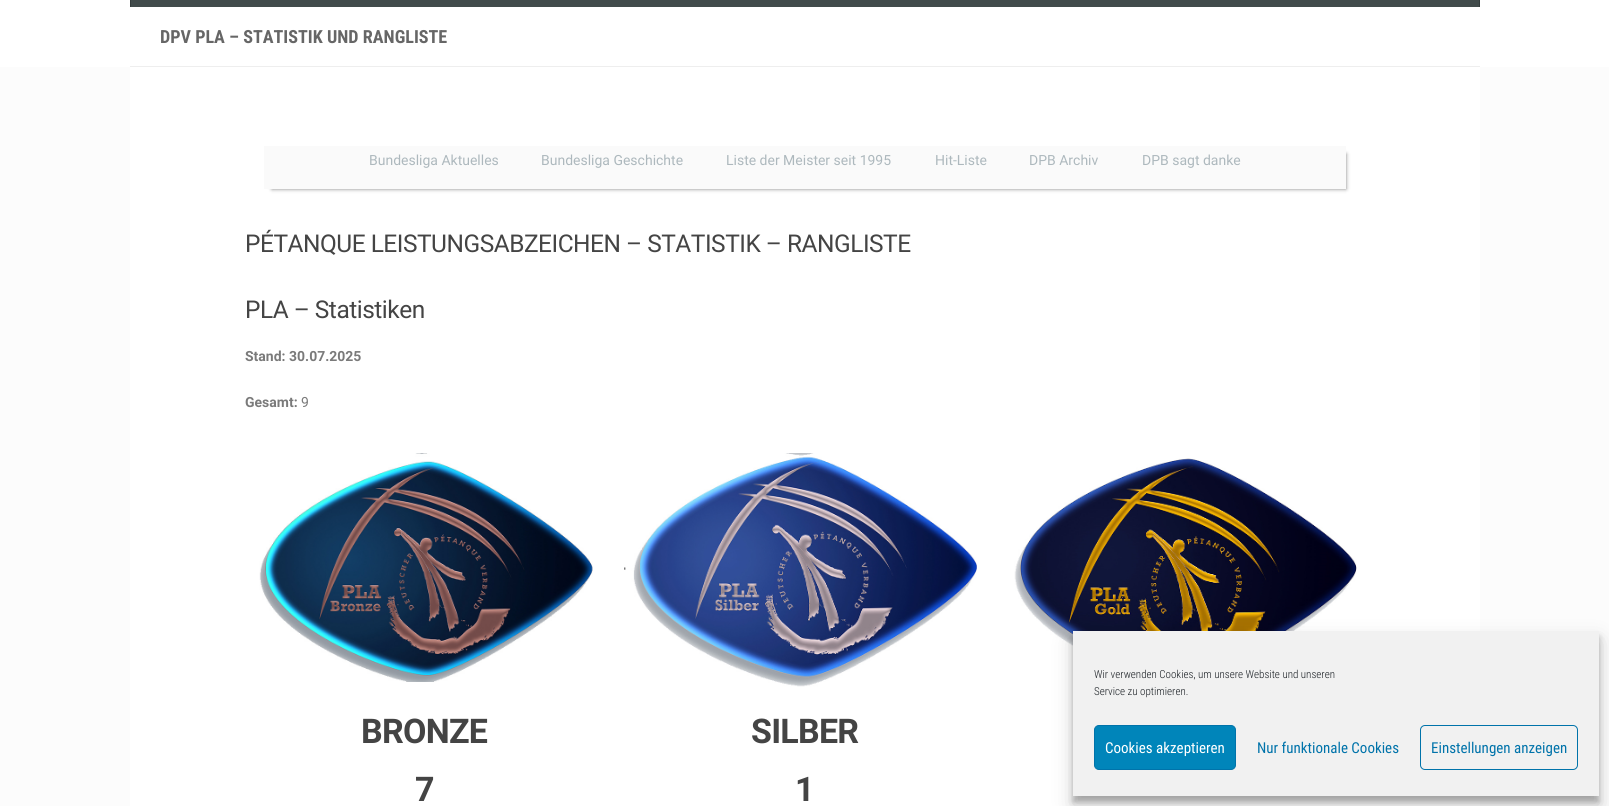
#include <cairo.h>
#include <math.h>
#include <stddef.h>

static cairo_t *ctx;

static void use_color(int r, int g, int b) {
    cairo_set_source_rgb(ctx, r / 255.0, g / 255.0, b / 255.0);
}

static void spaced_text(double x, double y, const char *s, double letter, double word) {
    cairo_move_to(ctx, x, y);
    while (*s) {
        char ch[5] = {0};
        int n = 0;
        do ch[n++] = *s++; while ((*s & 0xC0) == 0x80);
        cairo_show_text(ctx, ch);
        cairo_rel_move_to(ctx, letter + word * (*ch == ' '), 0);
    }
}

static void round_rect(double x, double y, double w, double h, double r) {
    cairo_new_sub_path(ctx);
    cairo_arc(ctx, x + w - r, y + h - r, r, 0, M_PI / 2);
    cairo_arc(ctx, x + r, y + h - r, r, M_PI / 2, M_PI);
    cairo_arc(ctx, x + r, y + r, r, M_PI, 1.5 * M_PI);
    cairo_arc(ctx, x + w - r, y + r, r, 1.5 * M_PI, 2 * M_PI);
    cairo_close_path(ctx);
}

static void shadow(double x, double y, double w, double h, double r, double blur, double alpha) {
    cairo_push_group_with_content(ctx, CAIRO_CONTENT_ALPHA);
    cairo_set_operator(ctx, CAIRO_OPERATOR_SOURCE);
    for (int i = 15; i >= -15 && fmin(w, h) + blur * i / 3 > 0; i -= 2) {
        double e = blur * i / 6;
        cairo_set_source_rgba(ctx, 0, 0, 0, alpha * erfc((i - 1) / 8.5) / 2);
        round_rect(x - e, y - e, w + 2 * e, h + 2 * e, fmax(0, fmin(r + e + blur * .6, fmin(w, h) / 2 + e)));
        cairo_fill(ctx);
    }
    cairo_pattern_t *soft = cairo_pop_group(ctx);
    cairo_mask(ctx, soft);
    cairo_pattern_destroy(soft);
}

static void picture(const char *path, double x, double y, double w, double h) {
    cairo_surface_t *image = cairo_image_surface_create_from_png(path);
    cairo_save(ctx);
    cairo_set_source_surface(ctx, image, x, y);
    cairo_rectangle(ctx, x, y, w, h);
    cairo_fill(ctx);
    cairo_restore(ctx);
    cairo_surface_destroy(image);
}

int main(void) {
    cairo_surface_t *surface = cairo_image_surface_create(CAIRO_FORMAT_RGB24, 1609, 806);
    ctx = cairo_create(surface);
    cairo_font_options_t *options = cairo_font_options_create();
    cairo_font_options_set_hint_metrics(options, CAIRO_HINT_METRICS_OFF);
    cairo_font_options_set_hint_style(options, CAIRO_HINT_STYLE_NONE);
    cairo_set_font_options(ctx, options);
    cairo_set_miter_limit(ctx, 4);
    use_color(252, 252, 252);
    cairo_paint(ctx);
    use_color(255, 255, 255);
    cairo_rectangle(ctx, 0, 0, 1609, 67);
    cairo_fill(ctx);
    use_color(65, 75, 75);
    cairo_rectangle(ctx, 130, 0, 1350, 7);
    cairo_fill(ctx);
    use_color(52, 60, 60);
    cairo_rectangle(ctx, 1479, 0, 1, 7);
    cairo_fill(ctx);
    cairo_rectangle(ctx, 130, 0, 1, 7);
    cairo_fill(ctx);
    use_color(255, 255, 255);
    cairo_rectangle(ctx, 130, 67, 1350, 739);
    cairo_fill(ctx);
    use_color(238, 238, 238);
    cairo_rectangle(ctx, 130, 66, 1350, 1);
    cairo_fill(ctx);
    cairo_select_font_face(ctx, "Roboto Condensed", CAIRO_FONT_SLANT_NORMAL, CAIRO_FONT_WEIGHT_BOLD);
    cairo_set_font_size(ctx, 18.1);
    use_color(102, 102, 102);
    cairo_move_to(ctx, 160, 43);
    cairo_show_text(ctx, "DPV PLA – STATISTIK UND RANGLISTE");
    use_color(0, 0, 0);
    shadow(272, 154, 1074, 35, 0, 2, 0.5);
    use_color(250, 250, 250);
    cairo_rectangle(ctx, 264, 146, 1082, 43);
    cairo_fill(ctx);
    cairo_select_font_face(ctx, "Roboto", CAIRO_FONT_SLANT_NORMAL, CAIRO_FONT_WEIGHT_NORMAL);
    cairo_set_font_size(ctx, 14);
    use_color(173, 184, 189);
    cairo_move_to(ctx, 369, 165);
    cairo_show_text(ctx, "Bundesliga Aktuelles");
    cairo_move_to(ctx, 541, 165);
    cairo_show_text(ctx, "Bundesliga Geschichte");
    cairo_move_to(ctx, 726, 165);
    cairo_show_text(ctx, "Liste der Meister seit 1995");
    cairo_move_to(ctx, 935, 165);
    cairo_show_text(ctx, "Hit-Liste");
    cairo_move_to(ctx, 1029, 165);
    cairo_show_text(ctx, "DPB Archiv");
    cairo_move_to(ctx, 1142, 165);
    cairo_show_text(ctx, "DPB sagt danke");
    cairo_set_font_size(ctx, 24.5);
    use_color(68, 68, 68);
    spaced_text(245, 252, "PÉTANQUE LEISTUNGSABZEICHEN – STATISTIK – RANGLISTE", -0.5, 0);
    spaced_text(245, 318, "PLA – Statistiken", -0.5, 0);
    cairo_select_font_face(ctx, "Roboto", CAIRO_FONT_SLANT_NORMAL, CAIRO_FONT_WEIGHT_BOLD);
    cairo_set_font_size(ctx, 14);
    use_color(122, 122, 122);
    cairo_move_to(ctx, 245, 361);
    cairo_show_text(ctx, "Stand: 30.07.2025");
    cairo_move_to(ctx, 245, 407);
    cairo_show_text(ctx, "Gesamt:");
    cairo_select_font_face(ctx, "Roboto", CAIRO_FONT_SLANT_NORMAL, CAIRO_FONT_WEIGHT_NORMAL);
    cairo_move_to(ctx, 301, 407);
    cairo_show_text(ctx, "9");
    picture("img1.png", 259, 453, 334, 229);
    picture("img2.png", 624, 453, 353, 234);
    picture("img3.png", 1014, 458, 343, 229);
    cairo_select_font_face(ctx, "Roboto", CAIRO_FONT_SLANT_NORMAL, CAIRO_FONT_WEIGHT_BOLD);
    cairo_set_font_size(ctx, 34);
    use_color(68, 68, 68);
    spaced_text(361, 743, "BRONZE", -0.75, 0);
    spaced_text(415, 801, "7", -0.75, 0);
    spaced_text(751, 743, "SILBER", -0.75, 0);
    spaced_text(795, 801, "1", -0.75, 0);
    use_color(0, 0, 0);
    shadow(1073, 637, 526, 165, 0, 3, 0.23);
    shadow(1073, 641, 526, 165, 0, 10, 0.19);
    use_color(241, 241, 241);
    cairo_rectangle(ctx, 1073, 631, 526, 165);
    cairo_fill(ctx);
    cairo_select_font_face(ctx, "Roboto Condensed Light", CAIRO_FONT_SLANT_NORMAL, CAIRO_FONT_WEIGHT_NORMAL);
    cairo_set_font_size(ctx, 11);
    use_color(25, 30, 35);
    cairo_move_to(ctx, 1094, 678);
    cairo_show_text(ctx, "Wir verwenden Cookies, um unsere Website und unseren");
    cairo_move_to(ctx, 1094, 695);
    cairo_show_text(ctx, "Service zu optimieren.");
    use_color(0, 133, 186);
    round_rect(1094.5, 725.5, 141, 44, 4.5);
    cairo_fill_preserve(ctx);
    use_color(0, 115, 170);
    cairo_set_line_width(ctx, 1);
    cairo_stroke(ctx);
    cairo_select_font_face(ctx, "Roboto Condensed", CAIRO_FONT_SLANT_NORMAL, CAIRO_FONT_WEIGHT_NORMAL);
    cairo_set_font_size(ctx, 15);
    use_color(255, 255, 255);
    cairo_move_to(ctx, 1105, 753);
    cairo_show_text(ctx, "Cookies akzeptieren");
    use_color(0, 115, 170);
    cairo_move_to(ctx, 1257, 753);
    cairo_show_text(ctx, "Nur funktionale Cookies");
    round_rect(1420.5, 725.5, 157, 44, 4.5);
    cairo_stroke(ctx);
    cairo_move_to(ctx, 1431, 753);
    cairo_show_text(ctx, "Einstellungen anzeigen");
    cairo_surface_write_to_png(surface, "result.png");
    cairo_font_options_destroy(options);
    cairo_destroy(ctx);
    cairo_surface_destroy(surface);
    return 0;
}
